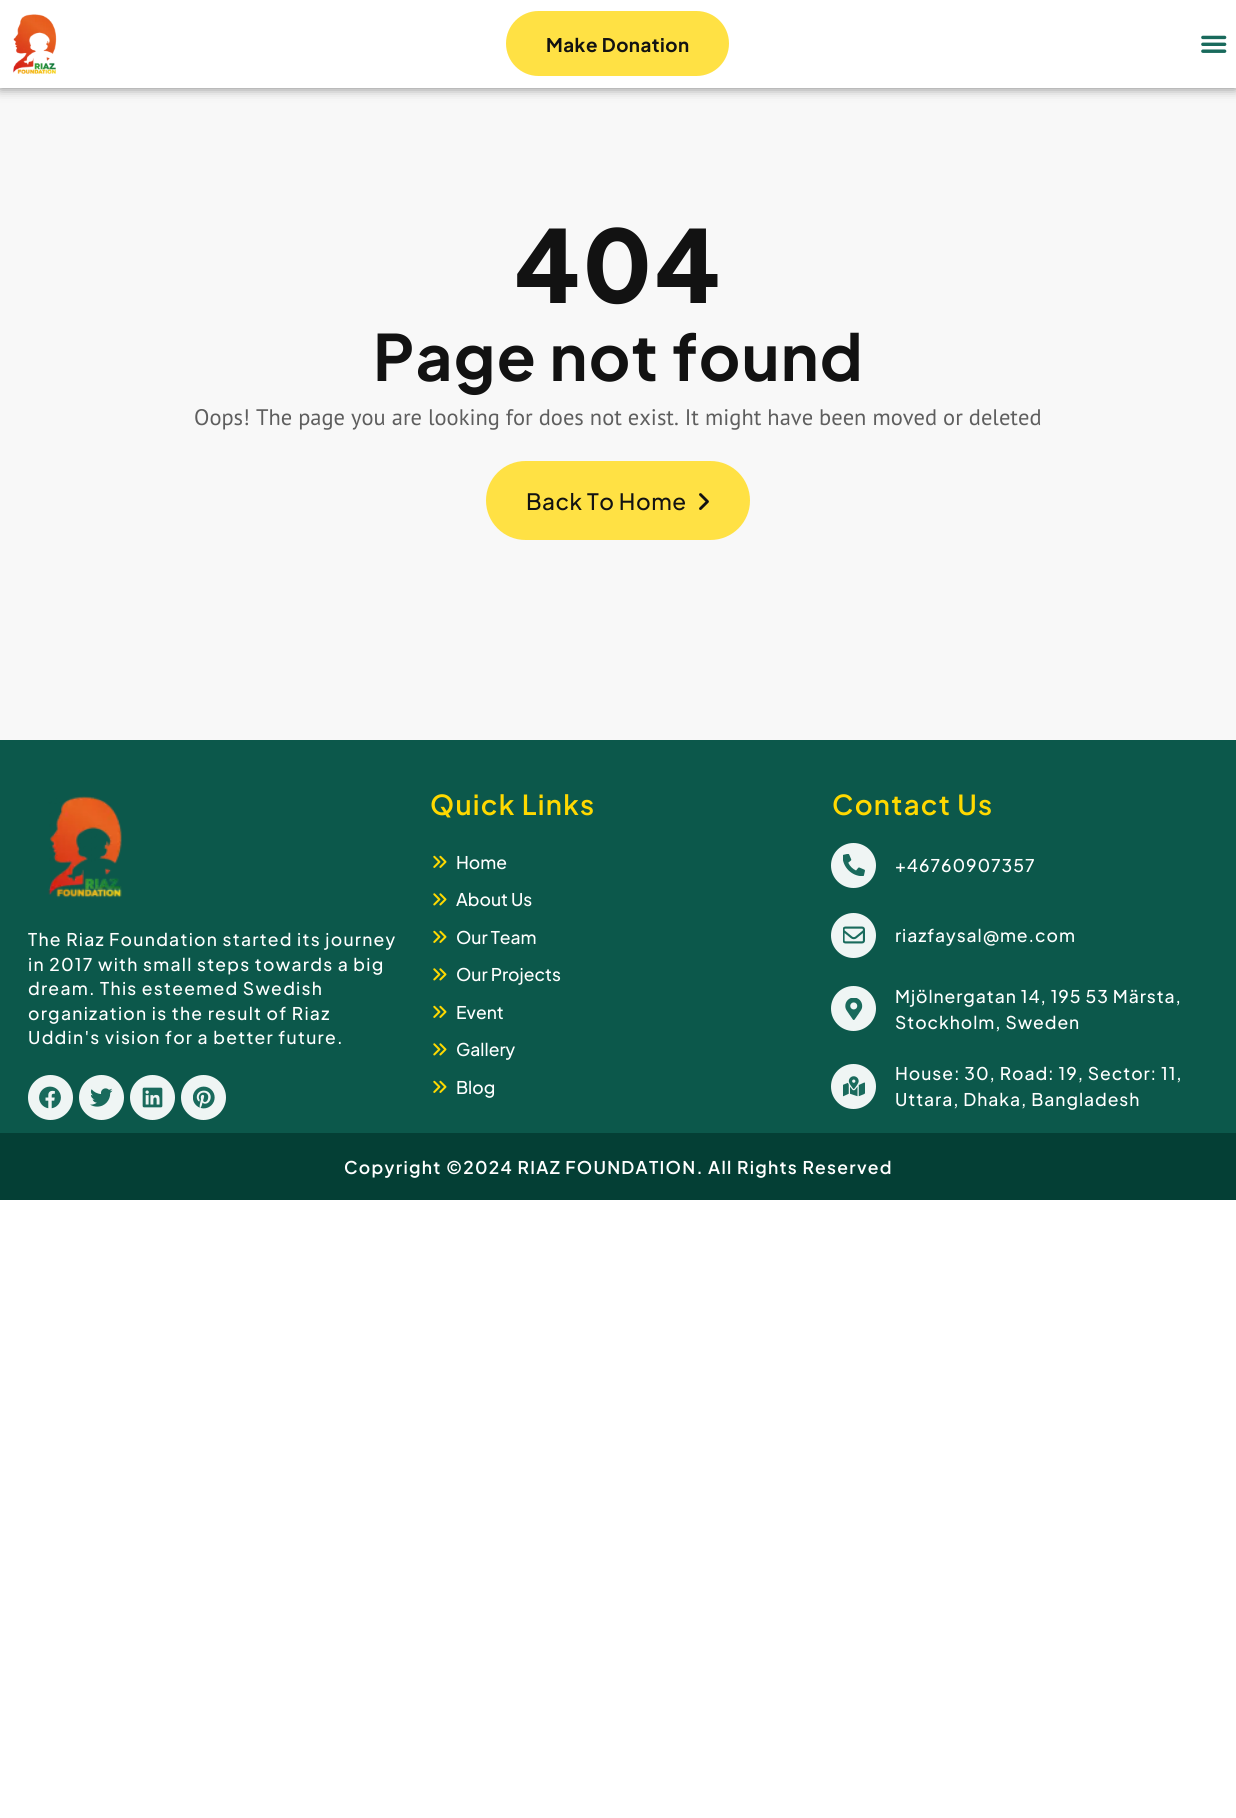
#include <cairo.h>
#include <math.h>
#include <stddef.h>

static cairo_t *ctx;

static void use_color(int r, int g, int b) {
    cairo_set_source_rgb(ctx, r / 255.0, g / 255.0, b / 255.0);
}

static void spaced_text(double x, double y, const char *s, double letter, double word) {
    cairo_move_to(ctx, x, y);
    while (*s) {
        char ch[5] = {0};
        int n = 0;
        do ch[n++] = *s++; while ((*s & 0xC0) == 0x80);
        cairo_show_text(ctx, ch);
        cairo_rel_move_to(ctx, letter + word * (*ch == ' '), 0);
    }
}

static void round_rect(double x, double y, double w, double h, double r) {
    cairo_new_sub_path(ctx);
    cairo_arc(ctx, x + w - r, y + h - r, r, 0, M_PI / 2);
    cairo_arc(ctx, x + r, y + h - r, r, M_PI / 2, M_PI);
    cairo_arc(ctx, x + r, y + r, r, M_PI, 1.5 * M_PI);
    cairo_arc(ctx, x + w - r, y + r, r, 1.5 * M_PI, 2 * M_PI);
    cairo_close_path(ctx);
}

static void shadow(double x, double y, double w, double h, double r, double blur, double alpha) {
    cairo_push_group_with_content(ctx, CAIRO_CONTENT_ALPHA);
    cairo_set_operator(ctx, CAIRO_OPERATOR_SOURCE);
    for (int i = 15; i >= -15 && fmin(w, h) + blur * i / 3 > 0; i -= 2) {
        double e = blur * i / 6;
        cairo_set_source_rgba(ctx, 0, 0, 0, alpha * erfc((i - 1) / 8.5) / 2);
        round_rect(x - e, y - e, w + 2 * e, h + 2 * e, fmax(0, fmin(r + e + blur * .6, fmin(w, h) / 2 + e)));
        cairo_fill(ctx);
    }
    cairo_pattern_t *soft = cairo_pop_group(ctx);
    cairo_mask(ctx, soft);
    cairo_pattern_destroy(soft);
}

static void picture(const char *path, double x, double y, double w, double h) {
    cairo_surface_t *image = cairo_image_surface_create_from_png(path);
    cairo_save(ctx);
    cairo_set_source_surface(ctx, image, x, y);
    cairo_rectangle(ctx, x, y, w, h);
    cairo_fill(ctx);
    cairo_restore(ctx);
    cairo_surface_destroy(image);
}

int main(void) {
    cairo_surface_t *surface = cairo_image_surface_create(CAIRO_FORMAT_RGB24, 1236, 1818);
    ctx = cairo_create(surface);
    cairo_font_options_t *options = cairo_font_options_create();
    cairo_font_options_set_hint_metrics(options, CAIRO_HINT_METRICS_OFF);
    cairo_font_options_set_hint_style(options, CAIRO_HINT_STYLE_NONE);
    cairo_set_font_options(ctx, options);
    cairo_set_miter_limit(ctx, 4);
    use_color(255, 255, 255);
    cairo_paint(ctx);
    use_color(248, 248, 248);
    cairo_rectangle(ctx, 0, 88, 1236, 652);
    cairo_fill(ctx);
    use_color(0, 0, 0);
    shadow(0, 0, 1236, 88, 0, 6, 0.5);
    use_color(255, 255, 255);
    cairo_rectangle(ctx, 0, 0, 1236, 88);
    cairo_fill(ctx);
    picture("img1.png", 13, 14, 44, 60);
    use_color(255, 225, 68);
    round_rect(506, 11, 223, 65, 32.5);
    cairo_fill(ctx);
    cairo_select_font_face(ctx, "Plus Jakarta Sans", CAIRO_FONT_SLANT_NORMAL, CAIRO_FONT_WEIGHT_BOLD);
    cairo_set_font_size(ctx, 18.75);
    use_color(18, 18, 18);
    spaced_text(546, 52, "Make Donation", 0.5, 0);
    picture("img2.png", 1201, 35, 26, 18);
    cairo_select_font_face(ctx, "Plus Jakarta Sans ExtraBold", CAIRO_FONT_SLANT_NORMAL, CAIRO_FONT_WEIGHT_NORMAL);
    cairo_set_font_size(ctx, 100);
    spaced_text(514, 303, "404", 2, 0);
    cairo_select_font_face(ctx, "Plus Jakarta Sans", CAIRO_FONT_SLANT_NORMAL, CAIRO_FONT_WEIGHT_BOLD);
    cairo_set_font_size(ctx, 63.75);
    spaced_text(373, 381, "Page not found", 1.27, 0);
    cairo_select_font_face(ctx, "PT Sans", CAIRO_FONT_SLANT_NORMAL, CAIRO_FONT_WEIGHT_NORMAL);
    cairo_set_font_size(ctx, 22.5);
    use_color(94, 94, 94);
    cairo_move_to(ctx, 194, 425);
    cairo_show_text(ctx, "Oops! The page you are looking for does not exist. It might have been moved or deleted");
    use_color(255, 225, 68);
    round_rect(486, 461, 264, 79, 39.5);
    cairo_fill(ctx);
    cairo_select_font_face(ctx, "Plus Jakarta Sans Medium", CAIRO_FONT_SLANT_NORMAL, CAIRO_FONT_WEIGHT_NORMAL);
    use_color(18, 18, 18);
    spaced_text(526, 510, "Back To Home", 0.5, 0);
    picture("img3.png", 699, 493, 10, 17);
    use_color(12, 88, 75);
    cairo_rectangle(ctx, 0, 740, 1236, 393);
    cairo_fill(ctx);
    picture("img4.png", 48, 796, 74, 102);
    cairo_set_font_size(ctx, 17.5);
    use_color(255, 255, 255);
    spaced_text(28, 946, "The Riaz Foundation started its journey", 1.27, 0);
    spaced_text(28, 971, "in 2017 with small steps towards a big", 1.27, 0);
    spaced_text(28, 995, "dream. This esteemed Swedish", 1.27, 0);
    spaced_text(28, 1020, "organization is the result of Riaz", 1.27, 0);
    spaced_text(28, 1044, "Uddin's vision for a better future.", 1.27, 0);
    use_color(239, 245, 244);
    cairo_new_path(ctx);
    cairo_arc(ctx, 50.5, 1097.5, 22.5, 0, 2 * M_PI);
    cairo_fill(ctx);
    picture("img5.png", 39, 1086, 22, 23);
    cairo_arc(ctx, 101.5, 1097.5, 22.5, 0, 2 * M_PI);
    cairo_fill(ctx);
    picture("img6.png", 90, 1088, 23, 19);
    cairo_arc(ctx, 152.5, 1097.5, 22.5, 0, 2 * M_PI);
    cairo_fill(ctx);
    picture("img7.png", 142, 1087, 21, 21);
    cairo_arc(ctx, 203.5, 1097.5, 22.5, 0, 2 * M_PI);
    cairo_fill(ctx);
    picture("img8.png", 193, 1086, 22, 23);
    cairo_select_font_face(ctx, "Plus Jakarta Sans SemiBold", CAIRO_FONT_SLANT_NORMAL, CAIRO_FONT_WEIGHT_NORMAL);
    cairo_set_font_size(ctx, 27.5);
    use_color(255, 217, 0);
    spaced_text(430, 815, "Quick Links", 1.27, 0);
    picture("img9.png", 433, 855, 14, 13);
    cairo_select_font_face(ctx, "Plus Jakarta Sans Medium", CAIRO_FONT_SLANT_NORMAL, CAIRO_FONT_WEIGHT_NORMAL);
    cairo_set_font_size(ctx, 17.5);
    use_color(255, 255, 255);
    cairo_move_to(ctx, 456, 869);
    cairo_show_text(ctx, "Home");
    picture("img10.png", 433, 893, 14, 13);
    cairo_move_to(ctx, 456, 906);
    cairo_show_text(ctx, "About Us");
    picture("img9.png", 433, 930, 14, 13);
    cairo_move_to(ctx, 456, 944);
    cairo_show_text(ctx, "Our Team");
    picture("img10.png", 433, 968, 14, 13);
    cairo_move_to(ctx, 456, 981);
    cairo_show_text(ctx, "Our Projects");
    picture("img9.png", 433, 1005, 14, 13);
    cairo_move_to(ctx, 456, 1019);
    cairo_show_text(ctx, "Event");
    picture("img10.png", 433, 1043, 14, 13);
    cairo_move_to(ctx, 456, 1056);
    cairo_show_text(ctx, "Gallery");
    picture("img9.png", 433, 1080, 14, 13);
    cairo_move_to(ctx, 456, 1094);
    cairo_show_text(ctx, "Blog");
    cairo_select_font_face(ctx, "Plus Jakarta Sans SemiBold", CAIRO_FONT_SLANT_NORMAL, CAIRO_FONT_WEIGHT_NORMAL);
    cairo_set_font_size(ctx, 27.5);
    use_color(255, 217, 0);
    spaced_text(832, 815, "Contact Us", 1.27, 0);
    use_color(239, 245, 244);
    cairo_new_path(ctx);
    cairo_arc(ctx, 853.5, 865.5, 22.5, 0, 2 * M_PI);
    cairo_fill(ctx);
    picture("img11.png", 843, 854, 22, 22);
    cairo_select_font_face(ctx, "Plus Jakarta Sans Medium", CAIRO_FONT_SLANT_NORMAL, CAIRO_FONT_WEIGHT_NORMAL);
    cairo_set_font_size(ctx, 17.5);
    use_color(255, 255, 255);
    spaced_text(895, 872, "+46760907357", 0.95, 0);
    use_color(239, 245, 244);
    cairo_new_path(ctx);
    cairo_arc(ctx, 853.5, 935.5, 22.5, 0, 2 * M_PI);
    cairo_fill(ctx);
    picture("img12.png", 843, 926, 22, 18);
    use_color(255, 255, 255);
    spaced_text(895, 942, "riazfaysal@me.com", 0.95, 0);
    use_color(239, 245, 244);
    cairo_new_path(ctx);
    cairo_arc(ctx, 853.5, 1008.5, 22.5, 0, 2 * M_PI);
    cairo_fill(ctx);
    picture("img13.png", 845, 998, 18, 22);
    use_color(255, 255, 255);
    spaced_text(895, 1003, "Mjölnergatan 14, 195 53 Märsta,", 0.95, 0);
    spaced_text(895, 1029, "Stockholm, Sweden", 0.95, 0);
    use_color(239, 245, 244);
    cairo_new_path(ctx);
    cairo_arc(ctx, 853.5, 1086.5, 22.5, 0, 2 * M_PI);
    cairo_fill(ctx);
    picture("img14.png", 843, 1076, 22, 21);
    use_color(255, 255, 255);
    spaced_text(895, 1080, "House: 30, Road: 19, Sector: 11,", 0.95, 0);
    spaced_text(895, 1106, "Uttara, Dhaka, Bangladesh", 0.95, 0);
    use_color(4, 63, 53);
    cairo_rectangle(ctx, 0, 1133, 1236, 67);
    cairo_fill(ctx);
    cairo_select_font_face(ctx, "Plus Jakarta Sans SemiBold", CAIRO_FONT_SLANT_NORMAL, CAIRO_FONT_WEIGHT_NORMAL);
    use_color(255, 255, 255);
    spaced_text(344, 1174, "Copyright ©2024 RIAZ FOUNDATION. All Rights Reserved", 1.27, 0);
    cairo_surface_write_to_png(surface, "result.png");
    cairo_font_options_destroy(options);
    cairo_destroy(ctx);
    cairo_surface_destroy(surface);
    return 0;
}
